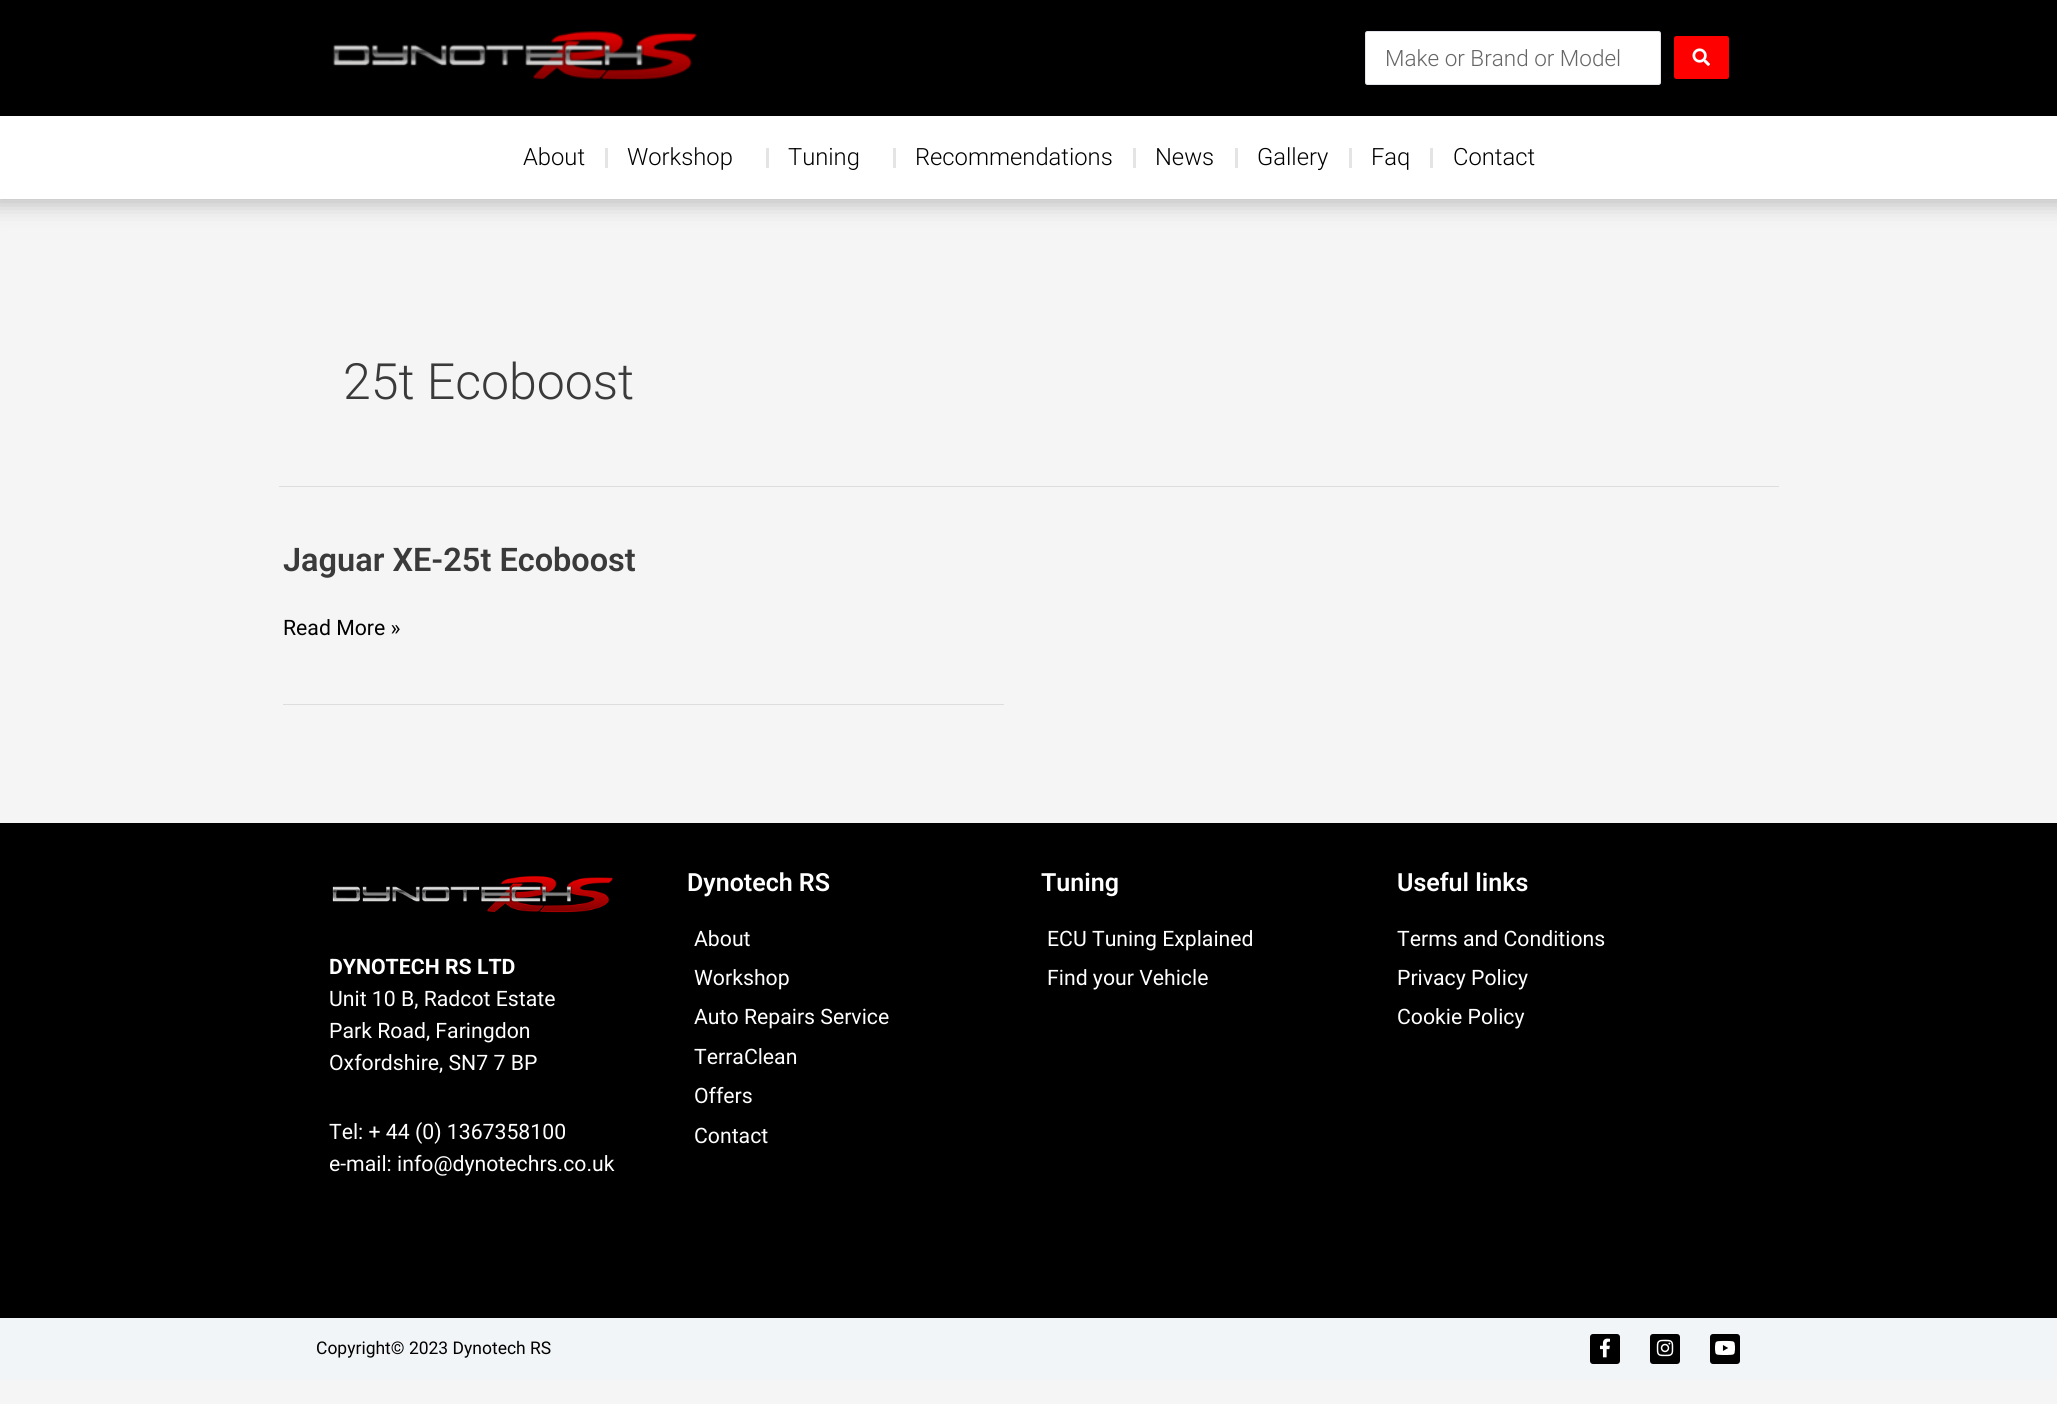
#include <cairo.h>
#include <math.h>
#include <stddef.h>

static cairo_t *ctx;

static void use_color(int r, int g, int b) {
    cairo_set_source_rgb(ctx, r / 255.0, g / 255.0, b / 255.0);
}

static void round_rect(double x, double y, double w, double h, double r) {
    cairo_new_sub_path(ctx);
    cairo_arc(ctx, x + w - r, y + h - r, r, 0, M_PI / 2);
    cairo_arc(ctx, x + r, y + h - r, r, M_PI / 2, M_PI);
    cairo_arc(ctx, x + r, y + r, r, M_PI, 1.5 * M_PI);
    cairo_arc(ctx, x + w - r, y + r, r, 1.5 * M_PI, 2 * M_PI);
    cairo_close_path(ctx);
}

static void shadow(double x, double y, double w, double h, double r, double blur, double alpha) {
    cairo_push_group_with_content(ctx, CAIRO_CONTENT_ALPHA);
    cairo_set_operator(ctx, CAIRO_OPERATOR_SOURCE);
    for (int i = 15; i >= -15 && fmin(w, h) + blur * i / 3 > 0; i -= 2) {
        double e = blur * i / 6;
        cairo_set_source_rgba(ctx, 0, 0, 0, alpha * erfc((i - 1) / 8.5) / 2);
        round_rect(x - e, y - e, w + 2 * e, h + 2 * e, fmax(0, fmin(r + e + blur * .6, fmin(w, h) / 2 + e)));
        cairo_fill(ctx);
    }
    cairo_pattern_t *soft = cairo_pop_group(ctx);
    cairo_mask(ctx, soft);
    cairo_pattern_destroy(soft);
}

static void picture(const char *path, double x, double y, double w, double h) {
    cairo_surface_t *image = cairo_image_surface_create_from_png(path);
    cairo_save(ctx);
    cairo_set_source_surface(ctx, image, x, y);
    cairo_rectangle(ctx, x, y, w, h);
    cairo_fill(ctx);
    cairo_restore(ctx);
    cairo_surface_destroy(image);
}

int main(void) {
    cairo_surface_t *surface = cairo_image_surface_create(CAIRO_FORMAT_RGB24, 2057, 1404);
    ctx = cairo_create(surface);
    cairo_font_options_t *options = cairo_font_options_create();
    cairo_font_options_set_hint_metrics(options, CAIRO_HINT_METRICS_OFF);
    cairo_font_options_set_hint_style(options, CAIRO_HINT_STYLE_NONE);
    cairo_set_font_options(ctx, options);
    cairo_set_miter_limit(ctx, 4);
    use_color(245, 245, 245);
    cairo_paint(ctx);
    use_color(0, 0, 0);
    cairo_rectangle(ctx, 0, 0, 2057, 116);
    cairo_fill(ctx);
    picture("img1.png", 332, 31, 365, 49);
    use_color(255, 255, 255);
    round_rect(1365.5, 31.5, 295, 53, 2);
    cairo_fill_preserve(ctx);
    use_color(225, 229, 235);
    cairo_set_line_width(ctx, 1);
    cairo_stroke(ctx);
    cairo_select_font_face(ctx, "Roboto Light", CAIRO_FONT_SLANT_NORMAL, CAIRO_FONT_WEIGHT_NORMAL);
    cairo_set_font_size(ctx, 22.5);
    use_color(102, 102, 102);
    cairo_move_to(ctx, 1385, 66);
    cairo_show_text(ctx, "Make or Brand or Model");
    use_color(255, 0, 0);
    round_rect(1674, 36, 55, 43, 2.5);
    cairo_fill(ctx);
    picture("img2.png", 1692, 48, 18, 18);
    use_color(0, 0, 0);
    shadow(-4, 113, 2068, 92, 0, 10.5, 0.22);
    use_color(255, 255, 255);
    cairo_rectangle(ctx, 0, 116, 2057, 83);
    cairo_fill(ctx);
    cairo_set_font_size(ctx, 23.75);
    use_color(0, 0, 0);
    cairo_move_to(ctx, 523, 165);
    cairo_show_text(ctx, "About");
    use_color(228, 228, 228);
    cairo_rectangle(ctx, 605, 148, 3, 20);
    cairo_fill(ctx);
    use_color(0, 0, 0);
    cairo_move_to(ctx, 627, 165);
    cairo_show_text(ctx, "Workshop");
    use_color(228, 228, 228);
    cairo_rectangle(ctx, 766, 148, 3, 20);
    cairo_fill(ctx);
    use_color(0, 0, 0);
    cairo_move_to(ctx, 788, 165);
    cairo_show_text(ctx, "Tuning");
    use_color(228, 228, 228);
    cairo_rectangle(ctx, 893, 148, 3, 20);
    cairo_fill(ctx);
    use_color(0, 0, 0);
    cairo_move_to(ctx, 915, 165);
    cairo_show_text(ctx, "Recommendations");
    use_color(228, 228, 228);
    cairo_rectangle(ctx, 1133, 148, 3, 20);
    cairo_fill(ctx);
    use_color(0, 0, 0);
    cairo_move_to(ctx, 1155, 165);
    cairo_show_text(ctx, "News");
    use_color(228, 228, 228);
    cairo_rectangle(ctx, 1235, 148, 3, 20);
    cairo_fill(ctx);
    use_color(0, 0, 0);
    cairo_move_to(ctx, 1257, 165);
    cairo_show_text(ctx, "Gallery");
    use_color(228, 228, 228);
    cairo_rectangle(ctx, 1349, 148, 3, 20);
    cairo_fill(ctx);
    use_color(0, 0, 0);
    cairo_move_to(ctx, 1371, 165);
    cairo_show_text(ctx, "Faq");
    use_color(228, 228, 228);
    cairo_rectangle(ctx, 1430, 148, 3, 20);
    cairo_fill(ctx);
    use_color(0, 0, 0);
    cairo_move_to(ctx, 1453, 165);
    cairo_show_text(ctx, "Contact");
    use_color(221, 221, 221);
    cairo_rectangle(ctx, 279, 486, 1500, 1);
    cairo_fill(ctx);
    cairo_set_font_size(ctx, 50);
    use_color(58, 58, 58);
    cairo_move_to(ctx, 343, 399);
    cairo_show_text(ctx, "25t Ecoboost");
    use_color(221, 221, 221);
    cairo_rectangle(ctx, 283, 704, 721, 1);
    cairo_fill(ctx);
    cairo_select_font_face(ctx, "Roboto SemiBold", CAIRO_FONT_SLANT_NORMAL, CAIRO_FONT_WEIGHT_NORMAL);
    cairo_set_font_size(ctx, 32.5);
    use_color(58, 58, 58);
    cairo_move_to(ctx, 283, 571);
    cairo_show_text(ctx, "Jaguar XE-25t Ecoboost");
    cairo_select_font_face(ctx, "Roboto", CAIRO_FONT_SLANT_NORMAL, CAIRO_FONT_WEIGHT_NORMAL);
    cairo_set_font_size(ctx, 21.25);
    use_color(0, 0, 0);
    cairo_move_to(ctx, 283, 635);
    cairo_show_text(ctx, "Read More »");
    cairo_rectangle(ctx, 0, 823, 2057, 495);
    cairo_fill(ctx);
    picture("img3.png", 332, 875, 281, 38);
    cairo_select_font_face(ctx, "Roboto", CAIRO_FONT_SLANT_NORMAL, CAIRO_FONT_WEIGHT_BOLD);
    use_color(255, 255, 255);
    cairo_move_to(ctx, 329, 974);
    cairo_show_text(ctx, "DYNOTECH RS LTD");
    cairo_select_font_face(ctx, "Roboto", CAIRO_FONT_SLANT_NORMAL, CAIRO_FONT_WEIGHT_NORMAL);
    cairo_move_to(ctx, 329, 1006);
    cairo_show_text(ctx, "Unit 10 B, Radcot Estate");
    cairo_move_to(ctx, 329, 1038);
    cairo_show_text(ctx, "Park Road, Faringdon");
    cairo_move_to(ctx, 329, 1070);
    cairo_show_text(ctx, "Oxfordshire, SN7 7 BP");
    cairo_move_to(ctx, 329, 1139);
    cairo_show_text(ctx, "Tel: + 44 (0) 1367358100");
    cairo_move_to(ctx, 329, 1171);
    cairo_show_text(ctx, "e-mail: info@dynotechrs.co.uk");
    cairo_select_font_face(ctx, "Roboto SemiBold", CAIRO_FONT_SLANT_NORMAL, CAIRO_FONT_WEIGHT_NORMAL);
    cairo_set_font_size(ctx, 25);
    cairo_move_to(ctx, 687, 891);
    cairo_show_text(ctx, "Dynotech RS");
    cairo_select_font_face(ctx, "Roboto", CAIRO_FONT_SLANT_NORMAL, CAIRO_FONT_WEIGHT_NORMAL);
    cairo_set_font_size(ctx, 21.25);
    cairo_move_to(ctx, 694, 946);
    cairo_show_text(ctx, "About");
    cairo_move_to(ctx, 694, 985);
    cairo_show_text(ctx, "Workshop");
    cairo_move_to(ctx, 694, 1024);
    cairo_show_text(ctx, "Auto Repairs Service");
    cairo_move_to(ctx, 694, 1064);
    cairo_show_text(ctx, "TerraClean");
    cairo_move_to(ctx, 694, 1103);
    cairo_show_text(ctx, "Offers");
    cairo_move_to(ctx, 694, 1143);
    cairo_show_text(ctx, "Contact");
    cairo_select_font_face(ctx, "Roboto SemiBold", CAIRO_FONT_SLANT_NORMAL, CAIRO_FONT_WEIGHT_NORMAL);
    cairo_set_font_size(ctx, 25);
    cairo_move_to(ctx, 1041, 891);
    cairo_show_text(ctx, "Tuning");
    cairo_select_font_face(ctx, "Roboto", CAIRO_FONT_SLANT_NORMAL, CAIRO_FONT_WEIGHT_NORMAL);
    cairo_set_font_size(ctx, 21.25);
    cairo_move_to(ctx, 1047, 946);
    cairo_show_text(ctx, "ECU Tuning Explained");
    cairo_move_to(ctx, 1047, 985);
    cairo_show_text(ctx, "Find your Vehicle");
    cairo_select_font_face(ctx, "Roboto SemiBold", CAIRO_FONT_SLANT_NORMAL, CAIRO_FONT_WEIGHT_NORMAL);
    cairo_set_font_size(ctx, 25);
    cairo_move_to(ctx, 1397, 891);
    cairo_show_text(ctx, "Useful links");
    cairo_select_font_face(ctx, "Roboto", CAIRO_FONT_SLANT_NORMAL, CAIRO_FONT_WEIGHT_NORMAL);
    cairo_set_font_size(ctx, 21.25);
    cairo_move_to(ctx, 1397, 946);
    cairo_show_text(ctx, "Terms and Conditions");
    cairo_move_to(ctx, 1397, 985);
    cairo_show_text(ctx, "Privacy Policy");
    cairo_move_to(ctx, 1397, 1024);
    cairo_show_text(ctx, "Cookie Policy");
    use_color(242, 245, 247);
    cairo_rectangle(ctx, 0, 1318, 2057, 62);
    cairo_fill(ctx);
    cairo_set_font_size(ctx, 17.5);
    use_color(0, 0, 0);
    cairo_move_to(ctx, 316, 1354);
    cairo_show_text(ctx, "Copyright© 2023 Dynotech RS");
    round_rect(1590, 1334, 30, 30, 3);
    cairo_fill(ctx);
    picture("img4.png", 1600, 1338, 10, 20);
    round_rect(1650, 1334, 30, 30, 3);
    cairo_fill(ctx);
    picture("img5.png", 1656, 1339, 18, 18);
    round_rect(1710, 1334, 30, 30, 3);
    cairo_fill(ctx);
    picture("img6.png", 1715, 1340, 20, 15);
    cairo_surface_write_to_png(surface, "result.png");
    cairo_font_options_destroy(options);
    cairo_destroy(ctx);
    cairo_surface_destroy(surface);
    return 0;
}
